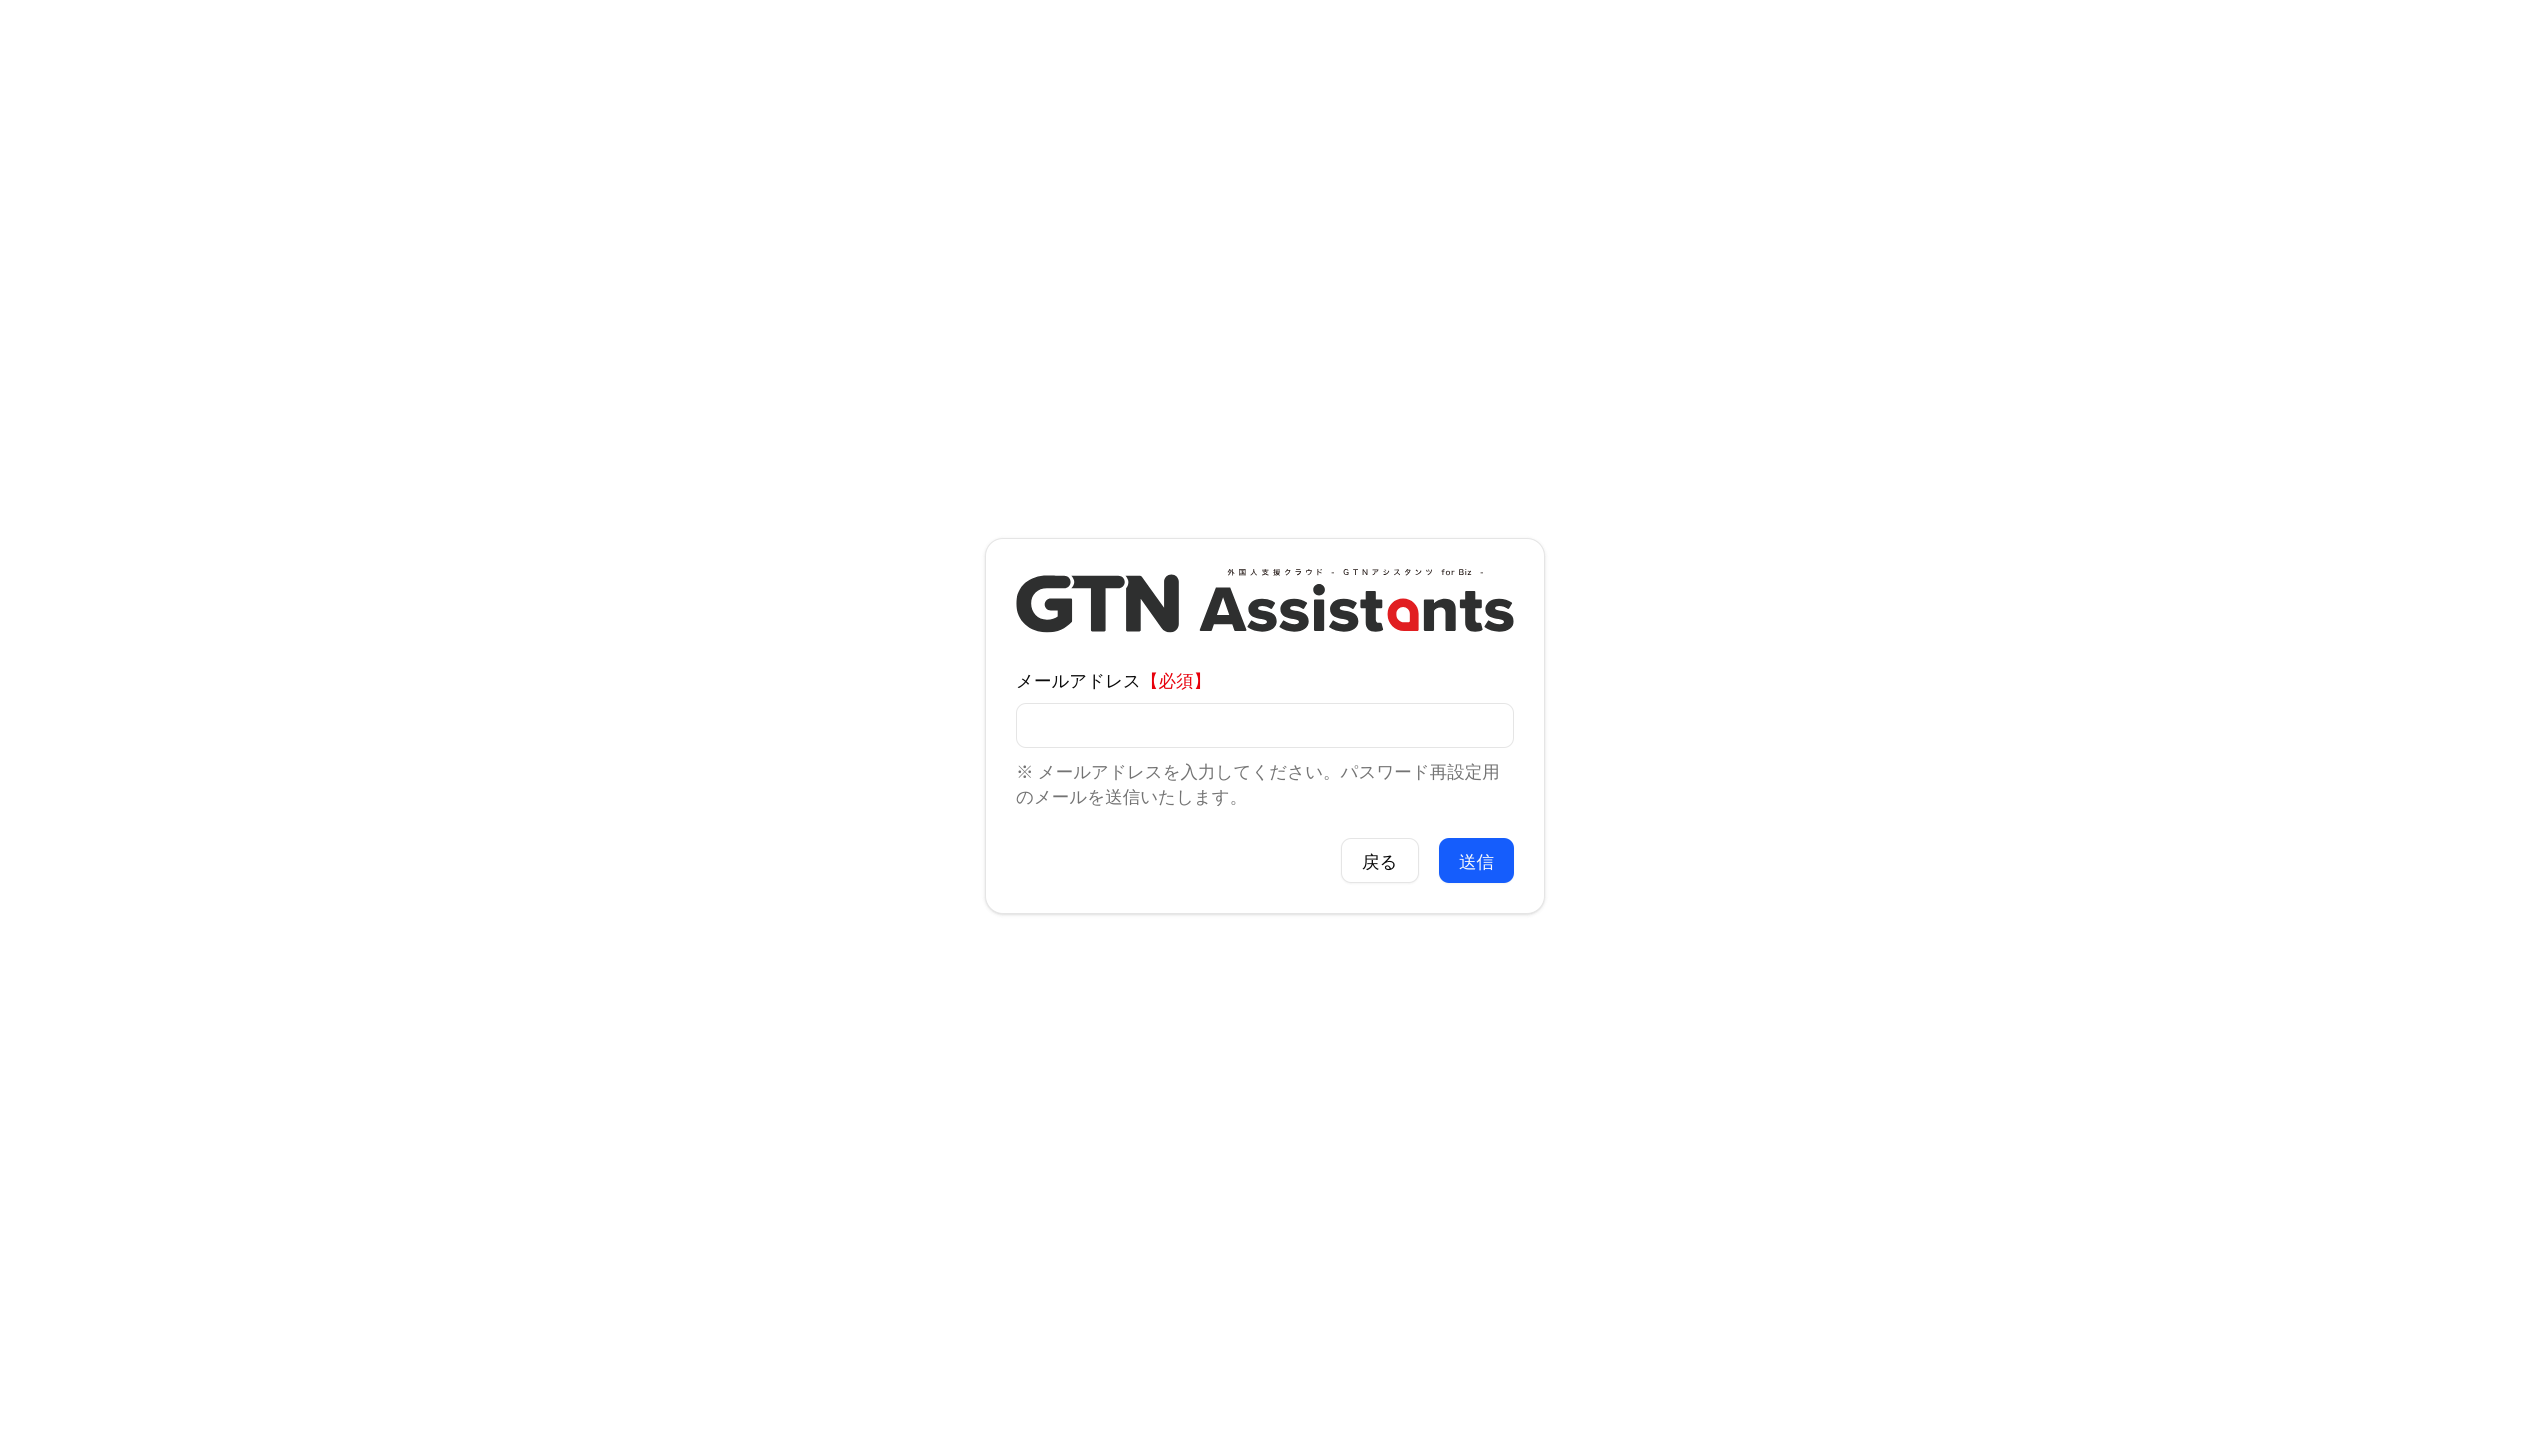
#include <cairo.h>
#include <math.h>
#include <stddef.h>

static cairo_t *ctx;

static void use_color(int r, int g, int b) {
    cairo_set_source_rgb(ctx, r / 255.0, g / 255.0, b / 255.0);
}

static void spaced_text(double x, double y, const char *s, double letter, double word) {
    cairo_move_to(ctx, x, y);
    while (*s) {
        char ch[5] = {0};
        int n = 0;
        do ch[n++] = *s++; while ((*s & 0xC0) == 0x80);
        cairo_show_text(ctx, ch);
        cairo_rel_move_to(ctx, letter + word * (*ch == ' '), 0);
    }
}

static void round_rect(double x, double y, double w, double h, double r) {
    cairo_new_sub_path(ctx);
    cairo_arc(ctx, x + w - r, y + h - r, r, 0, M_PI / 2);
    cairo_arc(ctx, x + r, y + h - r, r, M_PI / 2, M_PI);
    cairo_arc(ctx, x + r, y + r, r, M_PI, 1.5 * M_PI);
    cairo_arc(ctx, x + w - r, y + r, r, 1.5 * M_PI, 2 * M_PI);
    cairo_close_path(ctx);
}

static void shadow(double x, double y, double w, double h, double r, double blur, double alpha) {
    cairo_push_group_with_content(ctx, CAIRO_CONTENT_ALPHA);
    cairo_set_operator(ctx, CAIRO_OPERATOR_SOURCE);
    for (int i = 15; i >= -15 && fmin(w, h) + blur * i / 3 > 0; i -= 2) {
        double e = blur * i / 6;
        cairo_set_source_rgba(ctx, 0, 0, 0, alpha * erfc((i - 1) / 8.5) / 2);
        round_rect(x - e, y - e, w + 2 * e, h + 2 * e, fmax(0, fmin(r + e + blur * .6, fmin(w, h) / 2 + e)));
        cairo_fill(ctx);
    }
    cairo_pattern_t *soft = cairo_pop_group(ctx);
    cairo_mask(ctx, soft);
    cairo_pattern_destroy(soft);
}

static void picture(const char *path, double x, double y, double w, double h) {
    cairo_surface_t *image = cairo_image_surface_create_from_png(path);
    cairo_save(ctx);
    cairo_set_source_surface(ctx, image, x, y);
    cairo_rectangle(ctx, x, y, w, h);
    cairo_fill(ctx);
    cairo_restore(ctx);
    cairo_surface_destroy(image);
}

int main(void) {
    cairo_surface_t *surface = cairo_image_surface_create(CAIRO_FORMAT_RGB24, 2529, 1451);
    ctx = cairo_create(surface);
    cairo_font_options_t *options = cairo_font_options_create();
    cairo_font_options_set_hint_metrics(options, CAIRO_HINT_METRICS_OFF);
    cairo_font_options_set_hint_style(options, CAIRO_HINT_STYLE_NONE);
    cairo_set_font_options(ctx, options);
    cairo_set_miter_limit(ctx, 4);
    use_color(255, 255, 255);
    cairo_paint(ctx);
    use_color(0, 0, 0);
    shadow(986, 540, 558, 374, 16, 1, 0.1);
    shadow(985, 539, 560, 376, 18, 2, 0.1);
    use_color(255, 255, 255);
    round_rect(985.5, 538.5, 559, 375, 17.5);
    cairo_fill_preserve(ctx);
    use_color(229, 229, 229);
    cairo_set_line_width(ctx, 1);
    cairo_stroke(ctx);
    picture("img1.png", 1016, 569, 498, 64);
    cairo_select_font_face(ctx, "WenQuanYi Zen Hei Medium", CAIRO_FONT_SLANT_NORMAL, CAIRO_FONT_WEIGHT_NORMAL);
    cairo_set_font_size(ctx, 17.5);
    use_color(10, 10, 10);
    cairo_move_to(ctx, 1016, 687);
    cairo_show_text(ctx, "メールアドレス");
    use_color(231, 0, 11);
    cairo_move_to(ctx, 1141, 687);
    cairo_show_text(ctx, "【必須】");
    round_rect(1016.5, 703.5, 497, 44, 9.5);
    use_color(229, 229, 229);
    cairo_stroke(ctx);
    use_color(115, 115, 115);
    spaced_text(1016, 778, "※ メールアドレスを入力してください。パスワード再設定用", 0, -1);
    cairo_move_to(ctx, 1016, 803);
    cairo_show_text(ctx, "のメールを送信いたします。");
    use_color(0, 0, 0);
    shadow(1341, 839, 78, 45, 10, 1, 0.05);
    use_color(255, 255, 255);
    round_rect(1341.5, 838.5, 77, 44, 9.5);
    cairo_fill_preserve(ctx);
    use_color(229, 229, 229);
    cairo_stroke(ctx);
    use_color(10, 10, 10);
    cairo_move_to(ctx, 1362, 868);
    cairo_show_text(ctx, "戻る");
    use_color(0, 0, 0);
    shadow(1439, 839, 75, 45, 10, 1, 0.05);
    use_color(21, 93, 252);
    round_rect(1439, 838, 75, 45, 10);
    cairo_fill(ctx);
    use_color(250, 250, 250);
    cairo_move_to(ctx, 1459, 868);
    cairo_show_text(ctx, "送信");
    cairo_surface_write_to_png(surface, "result.png");
    cairo_font_options_destroy(options);
    cairo_destroy(ctx);
    cairo_surface_destroy(surface);
    return 0;
}
